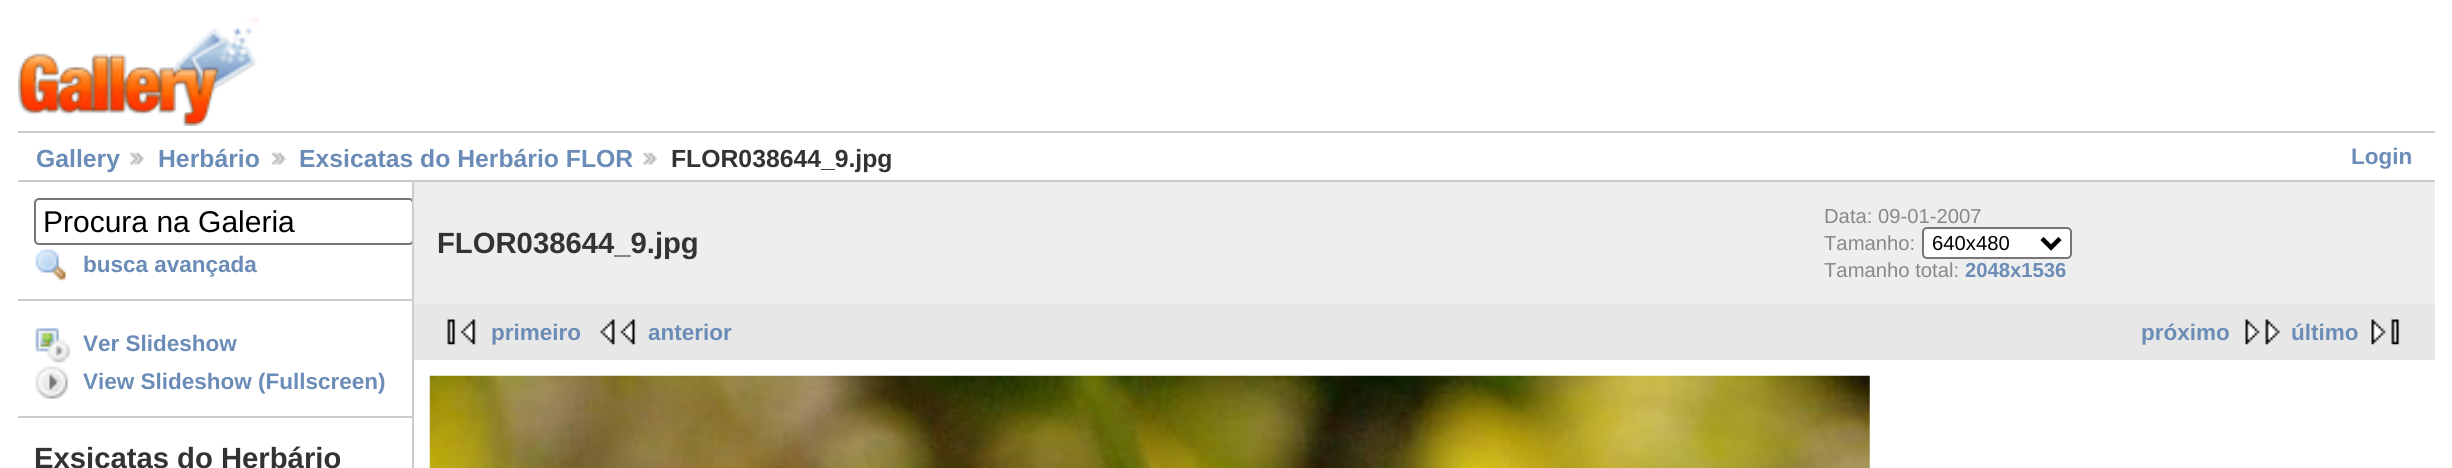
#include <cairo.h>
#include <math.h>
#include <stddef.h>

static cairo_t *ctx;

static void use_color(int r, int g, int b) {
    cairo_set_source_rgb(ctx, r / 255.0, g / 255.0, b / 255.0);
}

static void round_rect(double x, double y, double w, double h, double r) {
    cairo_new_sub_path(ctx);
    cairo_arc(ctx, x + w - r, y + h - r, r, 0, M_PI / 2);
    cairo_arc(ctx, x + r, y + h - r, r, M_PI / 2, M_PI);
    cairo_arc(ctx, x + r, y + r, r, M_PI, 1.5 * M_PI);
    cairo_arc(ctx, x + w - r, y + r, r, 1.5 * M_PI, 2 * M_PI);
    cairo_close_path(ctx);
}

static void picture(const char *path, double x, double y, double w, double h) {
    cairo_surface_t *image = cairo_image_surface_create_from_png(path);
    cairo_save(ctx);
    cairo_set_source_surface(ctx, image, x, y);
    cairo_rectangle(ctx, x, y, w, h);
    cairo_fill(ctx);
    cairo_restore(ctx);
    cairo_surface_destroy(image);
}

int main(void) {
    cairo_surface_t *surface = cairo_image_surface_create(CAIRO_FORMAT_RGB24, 2452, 468);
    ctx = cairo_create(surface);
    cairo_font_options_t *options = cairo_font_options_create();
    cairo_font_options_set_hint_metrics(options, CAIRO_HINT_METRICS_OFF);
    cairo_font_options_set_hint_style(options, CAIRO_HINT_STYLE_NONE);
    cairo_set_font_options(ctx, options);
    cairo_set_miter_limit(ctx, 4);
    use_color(255, 255, 255);
    cairo_paint(ctx);
    picture("img1.png", 18, 18, 241, 108);
    use_color(204, 204, 204);
    cairo_rectangle(ctx, 18, 131, 2417, 2);
    cairo_fill(ctx);
    cairo_rectangle(ctx, 18, 180, 2417, 2);
    cairo_fill(ctx);
    cairo_select_font_face(ctx, "Liberation Sans", CAIRO_FONT_SLANT_NORMAL, CAIRO_FONT_WEIGHT_BOLD);
    cairo_set_font_size(ctx, 24.75);
    use_color(107, 140, 183);
    cairo_move_to(ctx, 36, 167);
    cairo_show_text(ctx, "Gallery");
    picture("img2.png", 130, 152, 15, 13);
    cairo_move_to(ctx, 158, 167);
    cairo_show_text(ctx, "Herbário");
    picture("img3.png", 271, 152, 16, 13);
    cairo_move_to(ctx, 299, 167);
    cairo_show_text(ctx, "Exsicatas do Herbário FLOR");
    picture("img4.png", 643, 152, 15, 13);
    use_color(51, 51, 51);
    cairo_move_to(ctx, 671, 167);
    cairo_show_text(ctx, "FLOR038644_9.jpg");
    cairo_set_font_size(ctx, 22.5);
    use_color(107, 140, 183);
    cairo_move_to(ctx, 2351, 164);
    cairo_show_text(ctx, "Login");
    use_color(204, 204, 204);
    cairo_rectangle(ctx, 412, 182, 2, 286);
    cairo_fill(ctx);
    cairo_rectangle(ctx, 18, 299, 394, 2);
    cairo_fill(ctx);
    cairo_save(ctx);
    cairo_rectangle(ctx, 18, 182, 394, 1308);
    cairo_clip(ctx);
    round_rect(35, 199, 378, 45, 4);
    use_color(118, 118, 118);
    cairo_stroke(ctx);
    cairo_restore(ctx);
    cairo_select_font_face(ctx, "Liberation Sans", CAIRO_FONT_SLANT_NORMAL, CAIRO_FONT_WEIGHT_NORMAL);
    cairo_set_font_size(ctx, 30);
    use_color(0, 0, 0);
    cairo_move_to(ctx, 43, 232);
    cairo_show_text(ctx, "Procura na Galeria");
    picture("img5.png", 35, 249, 31, 33);
    cairo_select_font_face(ctx, "Liberation Sans", CAIRO_FONT_SLANT_NORMAL, CAIRO_FONT_WEIGHT_BOLD);
    cairo_set_font_size(ctx, 22.5);
    use_color(107, 140, 183);
    cairo_move_to(ctx, 83, 272);
    cairo_show_text(ctx, "busca avançada");
    use_color(204, 204, 204);
    cairo_rectangle(ctx, 18, 416, 394, 2);
    cairo_fill(ctx);
    picture("img6.png", 35, 328, 35, 35);
    use_color(107, 140, 183);
    cairo_move_to(ctx, 83, 351);
    cairo_show_text(ctx, "Ver Slideshow");
    picture("img7.png", 35, 366, 34, 33);
    cairo_move_to(ctx, 83, 389);
    cairo_show_text(ctx, "View Slideshow (Fullscreen)");
    cairo_set_font_size(ctx, 29.25);
    use_color(51, 51, 51);
    cairo_move_to(ctx, 34, 468);
    cairo_show_text(ctx, "Exsicatas do Herbário");
    use_color(238, 238, 238);
    cairo_rectangle(ctx, 414, 182, 2021, 122);
    cairo_fill(ctx);
    use_color(51, 51, 51);
    cairo_move_to(ctx, 437, 253);
    cairo_show_text(ctx, "FLOR038644_9.jpg");
    cairo_select_font_face(ctx, "Liberation Sans", CAIRO_FONT_SLANT_NORMAL, CAIRO_FONT_WEIGHT_NORMAL);
    cairo_set_font_size(ctx, 20.25);
    use_color(136, 136, 136);
    cairo_move_to(ctx, 1824, 223);
    cairo_show_text(ctx, "Data: 09-01-2007");
    cairo_move_to(ctx, 1824, 250);
    cairo_show_text(ctx, "Tamanho:");
    use_color(255, 255, 255);
    round_rect(1923, 228, 148, 30, 4);
    cairo_fill_preserve(ctx);
    use_color(118, 118, 118);
    cairo_stroke(ctx);
    cairo_new_path(ctx);
    cairo_move_to(ctx, 2042, 238.5);
    cairo_line_to(ctx, 2051, 247.5);
    cairo_line_to(ctx, 2060, 238.5);
    use_color(0, 0, 0);
    cairo_set_line_width(ctx, 4.5);
    cairo_stroke(ctx);
    cairo_move_to(ctx, 1932, 250);
    cairo_show_text(ctx, "640x480");
    use_color(136, 136, 136);
    cairo_move_to(ctx, 1824, 277);
    cairo_show_text(ctx, "Tamanho total:");
    cairo_select_font_face(ctx, "Liberation Sans", CAIRO_FONT_SLANT_NORMAL, CAIRO_FONT_WEIGHT_BOLD);
    use_color(107, 140, 183);
    cairo_move_to(ctx, 1965, 277);
    cairo_show_text(ctx, "2048x1536");
    use_color(231, 231, 231);
    cairo_rectangle(ctx, 414, 304, 2021, 56);
    cairo_fill(ctx);
    picture("img8.png", 447, 319, 29, 26);
    cairo_set_font_size(ctx, 22.5);
    use_color(107, 140, 183);
    cairo_move_to(ctx, 491, 340);
    cairo_show_text(ctx, "primeiro");
    picture("img9.png", 600, 319, 36, 26);
    cairo_move_to(ctx, 648, 340);
    cairo_show_text(ctx, "anterior");
    cairo_move_to(ctx, 2141, 340);
    cairo_show_text(ctx, "próximo");
    picture("img10.png", 2245, 319, 35, 26);
    cairo_move_to(ctx, 2291, 340);
    cairo_show_text(ctx, "último");
    picture("img11.png", 2371, 319, 29, 26);
    picture("img12.png", 429, 375, 1441, 93);
    cairo_surface_write_to_png(surface, "result.png");
    cairo_font_options_destroy(options);
    cairo_destroy(ctx);
    cairo_surface_destroy(surface);
    return 0;
}
